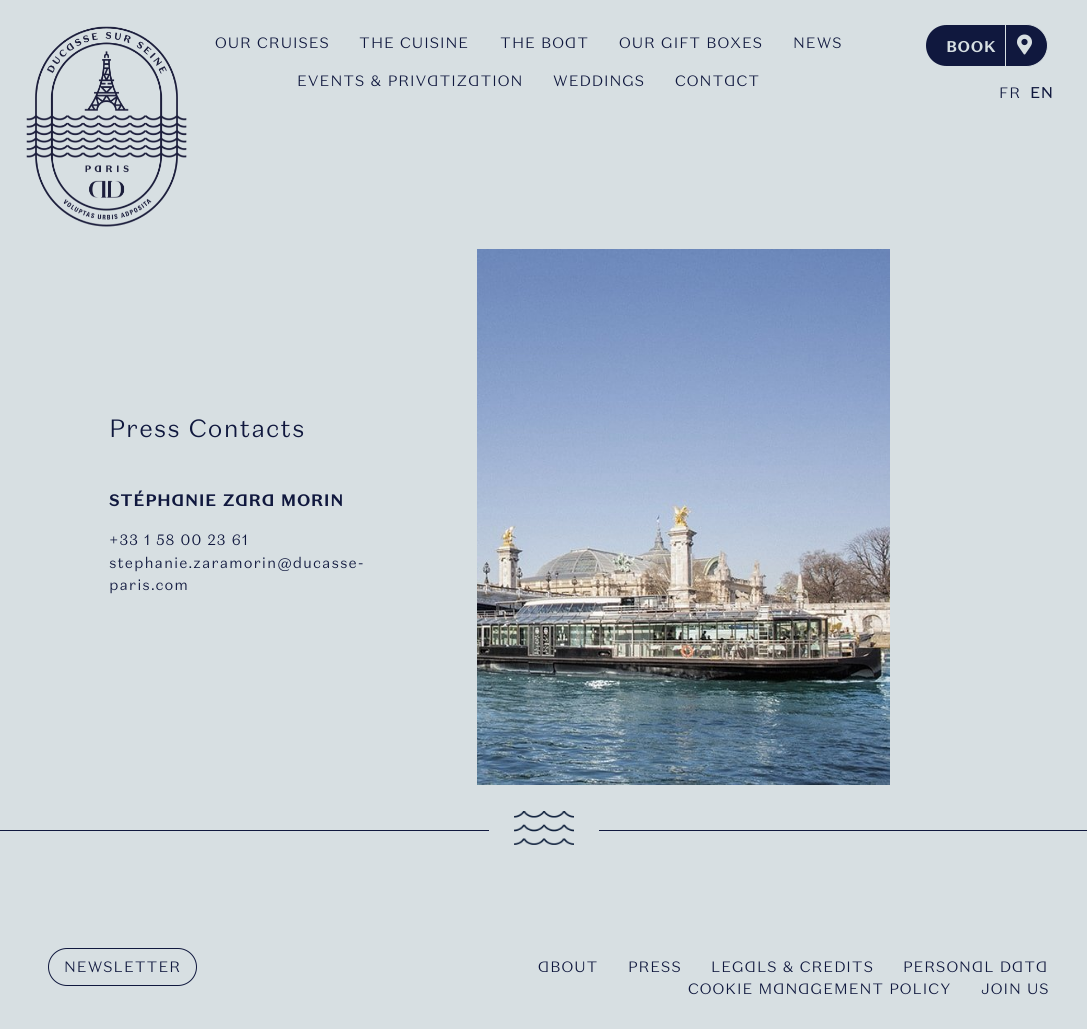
#include <cairo.h>
#include <math.h>
#include <stddef.h>

static cairo_t *ctx;

static void use_color(int r, int g, int b) {
    cairo_set_source_rgb(ctx, r / 255.0, g / 255.0, b / 255.0);
}

static void spaced_text(double x, double y, const char *s, double letter, double word) {
    cairo_move_to(ctx, x, y);
    while (*s) {
        char ch[5] = {0};
        int n = 0;
        do ch[n++] = *s++; while ((*s & 0xC0) == 0x80);
        cairo_show_text(ctx, ch);
        cairo_rel_move_to(ctx, letter + word * (*ch == ' '), 0);
    }
}

static void round_rect(double x, double y, double w, double h, double r) {
    cairo_new_sub_path(ctx);
    cairo_arc(ctx, x + w - r, y + h - r, r, 0, M_PI / 2);
    cairo_arc(ctx, x + r, y + h - r, r, M_PI / 2, M_PI);
    cairo_arc(ctx, x + r, y + r, r, M_PI, 1.5 * M_PI);
    cairo_arc(ctx, x + w - r, y + r, r, 1.5 * M_PI, 2 * M_PI);
    cairo_close_path(ctx);
}

static void picture(const char *path, double x, double y, double w, double h) {
    cairo_surface_t *image = cairo_image_surface_create_from_png(path);
    cairo_save(ctx);
    cairo_set_source_surface(ctx, image, x, y);
    cairo_rectangle(ctx, x, y, w, h);
    cairo_fill(ctx);
    cairo_restore(ctx);
    cairo_surface_destroy(image);
}

int main(void) {
    cairo_surface_t *surface = cairo_image_surface_create(CAIRO_FORMAT_RGB24, 1087, 1029);
    ctx = cairo_create(surface);
    cairo_font_options_t *options = cairo_font_options_create();
    cairo_font_options_set_hint_metrics(options, CAIRO_HINT_METRICS_OFF);
    cairo_font_options_set_hint_style(options, CAIRO_HINT_STYLE_NONE);
    cairo_set_font_options(ctx, options);
    cairo_set_miter_limit(ctx, 4);
    use_color(215, 223, 226);
    cairo_paint(ctx);
    picture("img1.png", 26, 26, 161, 201);
    cairo_select_font_face(ctx, "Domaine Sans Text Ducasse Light", CAIRO_FONT_SLANT_NORMAL, CAIRO_FONT_WEIGHT_NORMAL);
    cairo_set_font_size(ctx, 15);
    use_color(16, 24, 62);
    spaced_text(215, 48, "OUR CRUISES", 1, 0);
    spaced_text(359, 48, "THE CUISINE", 1, 0);
    spaced_text(500, 48, "THE BOAT", 1, 0);
    spaced_text(619, 48, "OUR GIFT BOXES", 1, 0);
    spaced_text(793, 48, "NEWS", 1, 0);
    spaced_text(297, 86, "EVENTS & PRIVATIZATION", 1, 0);
    spaced_text(553, 86, "WEDDINGS", 1, 0);
    spaced_text(675, 86, "CONTACT", 1, 0);
    cairo_new_path(ctx);
    cairo_move_to(ctx, 946.5, 25);
    cairo_line_to(ctx, 1006, 25);
    cairo_line_to(ctx, 1006, 66);
    cairo_line_to(ctx, 946.5, 66);
    cairo_curve_to(ctx, 935, 66, 926, 57, 926, 45.5);
    cairo_curve_to(ctx, 926, 34, 935, 25, 946.5, 25);
    cairo_close_path(ctx);
    cairo_fill(ctx);
    cairo_select_font_face(ctx, "Domaine Sans Text Ducasse", CAIRO_FONT_SLANT_NORMAL, CAIRO_FONT_WEIGHT_BOLD);
    use_color(215, 223, 226);
    spaced_text(946, 52, "BOOK", 1, 0);
    use_color(16, 24, 62);
    cairo_new_path(ctx);
    cairo_move_to(ctx, 1005.5, 24.5);
    cairo_line_to(ctx, 1026.5, 24.5);
    cairo_curve_to(ctx, 1038, 24.5, 1047.5, 34, 1047.5, 45.5);
    cairo_curve_to(ctx, 1047.5, 57, 1038, 66.5, 1026.5, 66.5);
    cairo_line_to(ctx, 1005.5, 66.5);
    cairo_close_path(ctx);
    cairo_fill_preserve(ctx);
    use_color(215, 223, 226);
    cairo_set_line_width(ctx, 1);
    cairo_stroke(ctx);
    picture("img2.png", 1017, 34, 15, 21);
    cairo_select_font_face(ctx, "Domaine Sans Text Ducasse Light", CAIRO_FONT_SLANT_NORMAL, CAIRO_FONT_WEIGHT_NORMAL);
    use_color(16, 24, 62);
    spaced_text(999, 98, "FR", 1, 0);
    cairo_select_font_face(ctx, "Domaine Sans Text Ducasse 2", CAIRO_FONT_SLANT_NORMAL, CAIRO_FONT_WEIGHT_BOLD);
    spaced_text(1030, 98, "EN", 1, 0);
    cairo_select_font_face(ctx, "Domaine Sans Text Ducasse Light", CAIRO_FONT_SLANT_NORMAL, CAIRO_FONT_WEIGHT_NORMAL);
    cairo_set_font_size(ctx, 25);
    spaced_text(109, 437, "Press Contacts", 1, 0);
    cairo_select_font_face(ctx, "Domaine Sans Text Ducasse", CAIRO_FONT_SLANT_NORMAL, CAIRO_FONT_WEIGHT_BOLD);
    cairo_set_font_size(ctx, 16);
    spaced_text(109, 506, "STÉPHANIE ZARA MORIN", 1, 0);
    cairo_select_font_face(ctx, "Domaine Sans Text Ducasse Light", CAIRO_FONT_SLANT_NORMAL, CAIRO_FONT_WEIGHT_NORMAL);
    cairo_set_font_size(ctx, 15);
    spaced_text(109, 545, "+33 1 58 00 23 61", 1, 0);
    spaced_text(109, 568, "stephanie.zaramorin@ducasse-", 1, 0);
    spaced_text(109, 590, "paris.com", 1, 0);
    picture("img3.png", 477, 249, 413, 536);
    cairo_rectangle(ctx, 0, 830, 1087, 1);
    cairo_fill(ctx);
    use_color(215, 223, 226);
    cairo_rectangle(ctx, 489, 830, 110, 1);
    cairo_fill(ctx);
    picture("img4.png", 514, 811, 60, 34);
    round_rect(48.5, 948.5, 148, 37, 18.5);
    use_color(16, 24, 62);
    cairo_stroke(ctx);
    spaced_text(64, 972, "NEWSLETTER", 1, 0);
    spaced_text(538, 972, "ABOUT", 1, 0);
    spaced_text(628, 972, "PRESS", 1, 0);
    spaced_text(711, 972, "LEGALS & CREDITS", 1, 0);
    spaced_text(903, 972, "PERSONAL DATA", 1, 0);
    spaced_text(688, 994, "COOKIE MANAGEMENT POLICY", 1, 0);
    spaced_text(981, 994, "JOIN US", 1, 0);
    cairo_surface_write_to_png(surface, "result.png");
    cairo_font_options_destroy(options);
    cairo_destroy(ctx);
    cairo_surface_destroy(surface);
    return 0;
}
